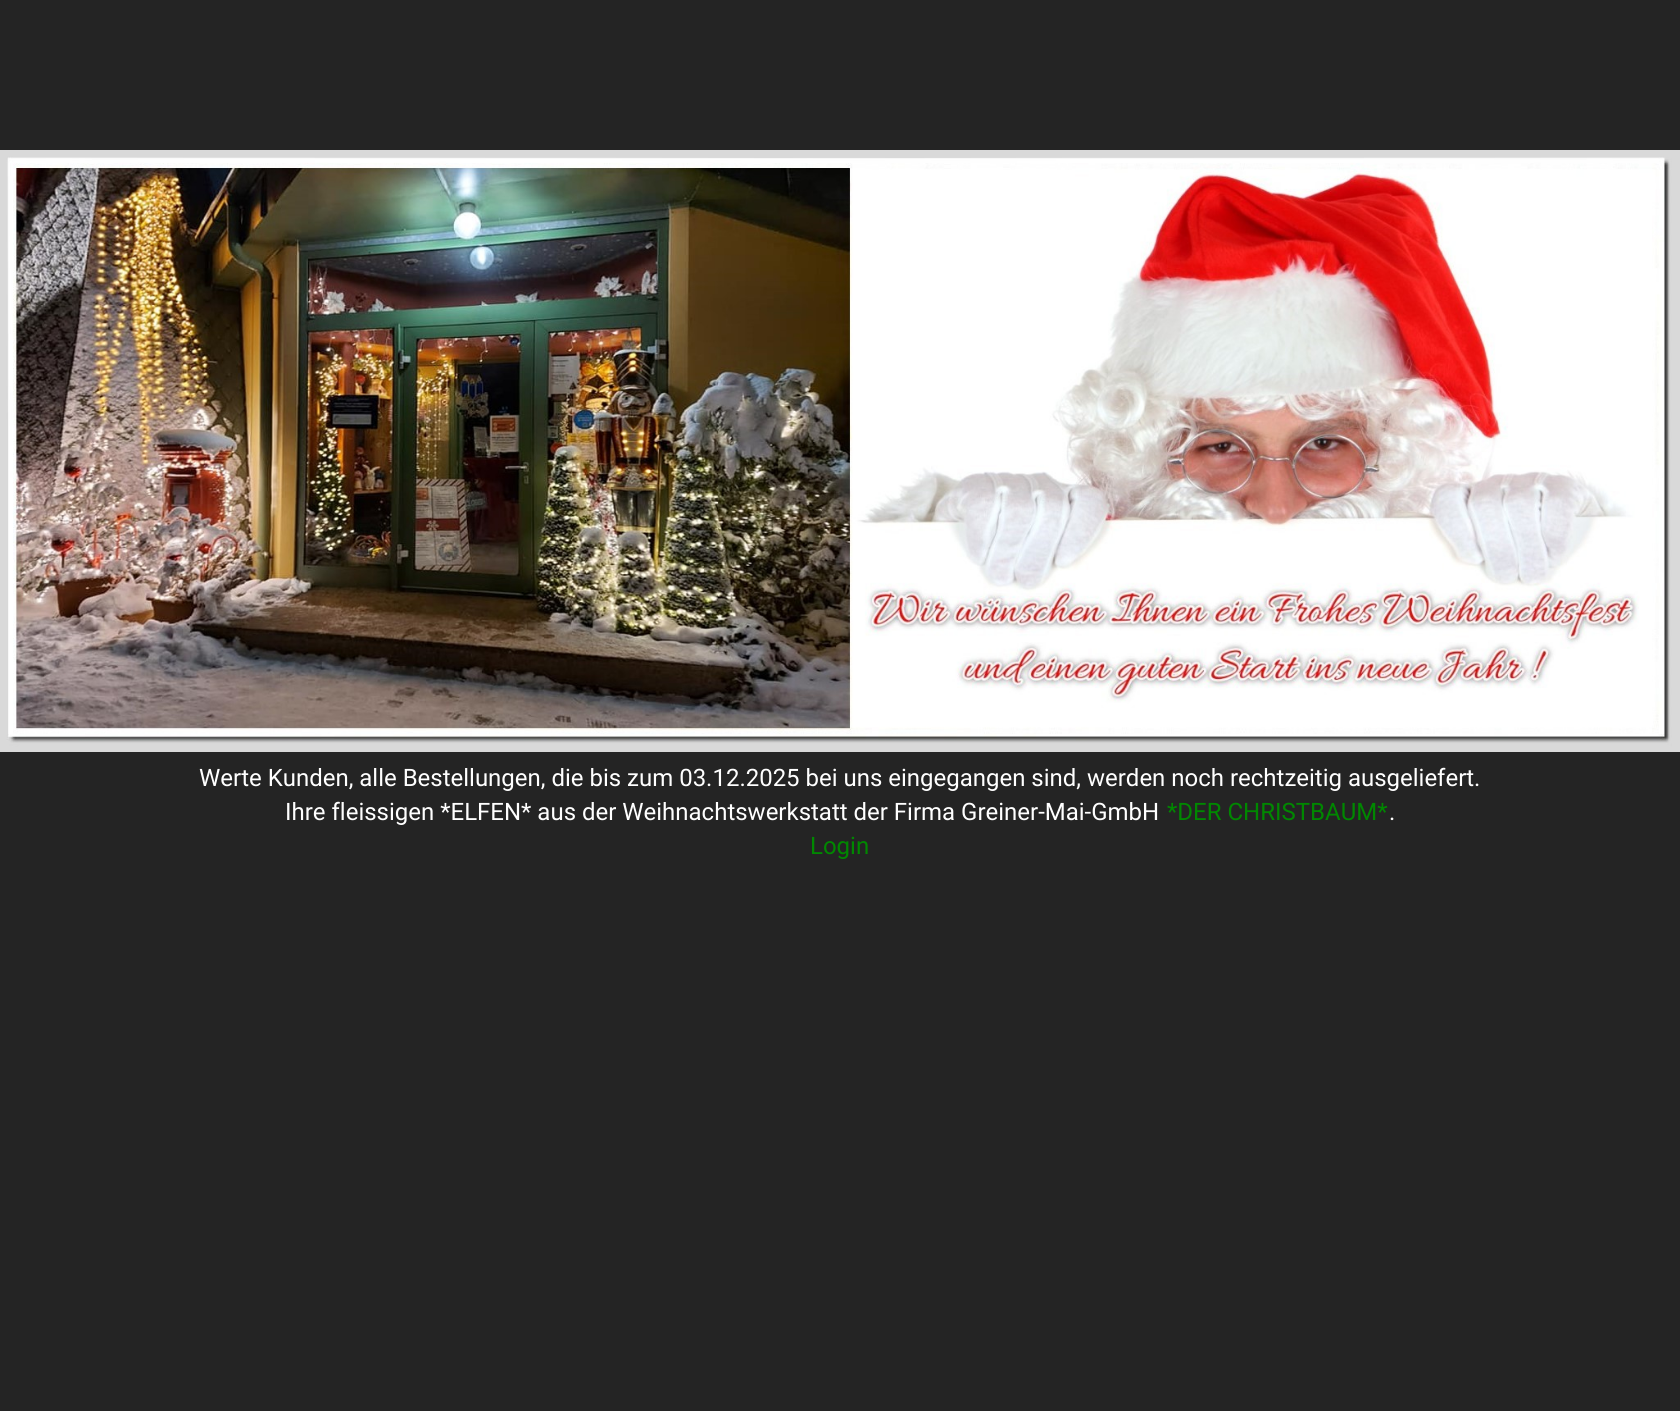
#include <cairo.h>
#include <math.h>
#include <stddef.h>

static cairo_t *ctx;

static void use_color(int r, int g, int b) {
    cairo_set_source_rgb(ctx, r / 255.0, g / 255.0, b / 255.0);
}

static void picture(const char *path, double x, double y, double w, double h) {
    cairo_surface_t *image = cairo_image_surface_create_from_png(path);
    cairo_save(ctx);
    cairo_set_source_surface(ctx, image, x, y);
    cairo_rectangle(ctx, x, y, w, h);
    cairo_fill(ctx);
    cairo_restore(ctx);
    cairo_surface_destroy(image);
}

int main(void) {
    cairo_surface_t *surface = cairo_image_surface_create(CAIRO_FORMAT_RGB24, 1680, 1411);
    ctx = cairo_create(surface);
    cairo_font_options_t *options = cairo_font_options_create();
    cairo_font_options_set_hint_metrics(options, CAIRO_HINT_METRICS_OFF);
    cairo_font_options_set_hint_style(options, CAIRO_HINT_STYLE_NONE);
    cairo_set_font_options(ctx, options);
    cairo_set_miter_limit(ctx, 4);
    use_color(36, 36, 36);
    cairo_paint(ctx);
    picture("img1.png", 0, 150, 1680, 602);
    cairo_select_font_face(ctx, "Roboto", CAIRO_FONT_SLANT_NORMAL, CAIRO_FONT_WEIGHT_NORMAL);
    cairo_set_font_size(ctx, 24);
    use_color(255, 255, 255);
    cairo_move_to(ctx, 199, 786);
    cairo_show_text(ctx, "Werte Kunden, alle Bestellungen, die bis zum 03.12.2025 bei uns eingegangen sind, werden noch rechtzeitig ausgeliefert.");
    cairo_move_to(ctx, 285, 820);
    cairo_show_text(ctx, "Ihre fleissigen *ELFEN* aus der Weihnachtswerkstatt der Firma Greiner-Mai-GmbH");
    use_color(0, 136, 0);
    cairo_move_to(ctx, 1167, 820);
    cairo_show_text(ctx, "*DER CHRISTBAUM*");
    use_color(255, 255, 255);
    cairo_move_to(ctx, 1389, 820);
    cairo_show_text(ctx, ".");
    use_color(0, 136, 0);
    cairo_move_to(ctx, 810, 854);
    cairo_show_text(ctx, "Login");
    cairo_surface_write_to_png(surface, "result.png");
    cairo_font_options_destroy(options);
    cairo_destroy(ctx);
    cairo_surface_destroy(surface);
    return 0;
}
